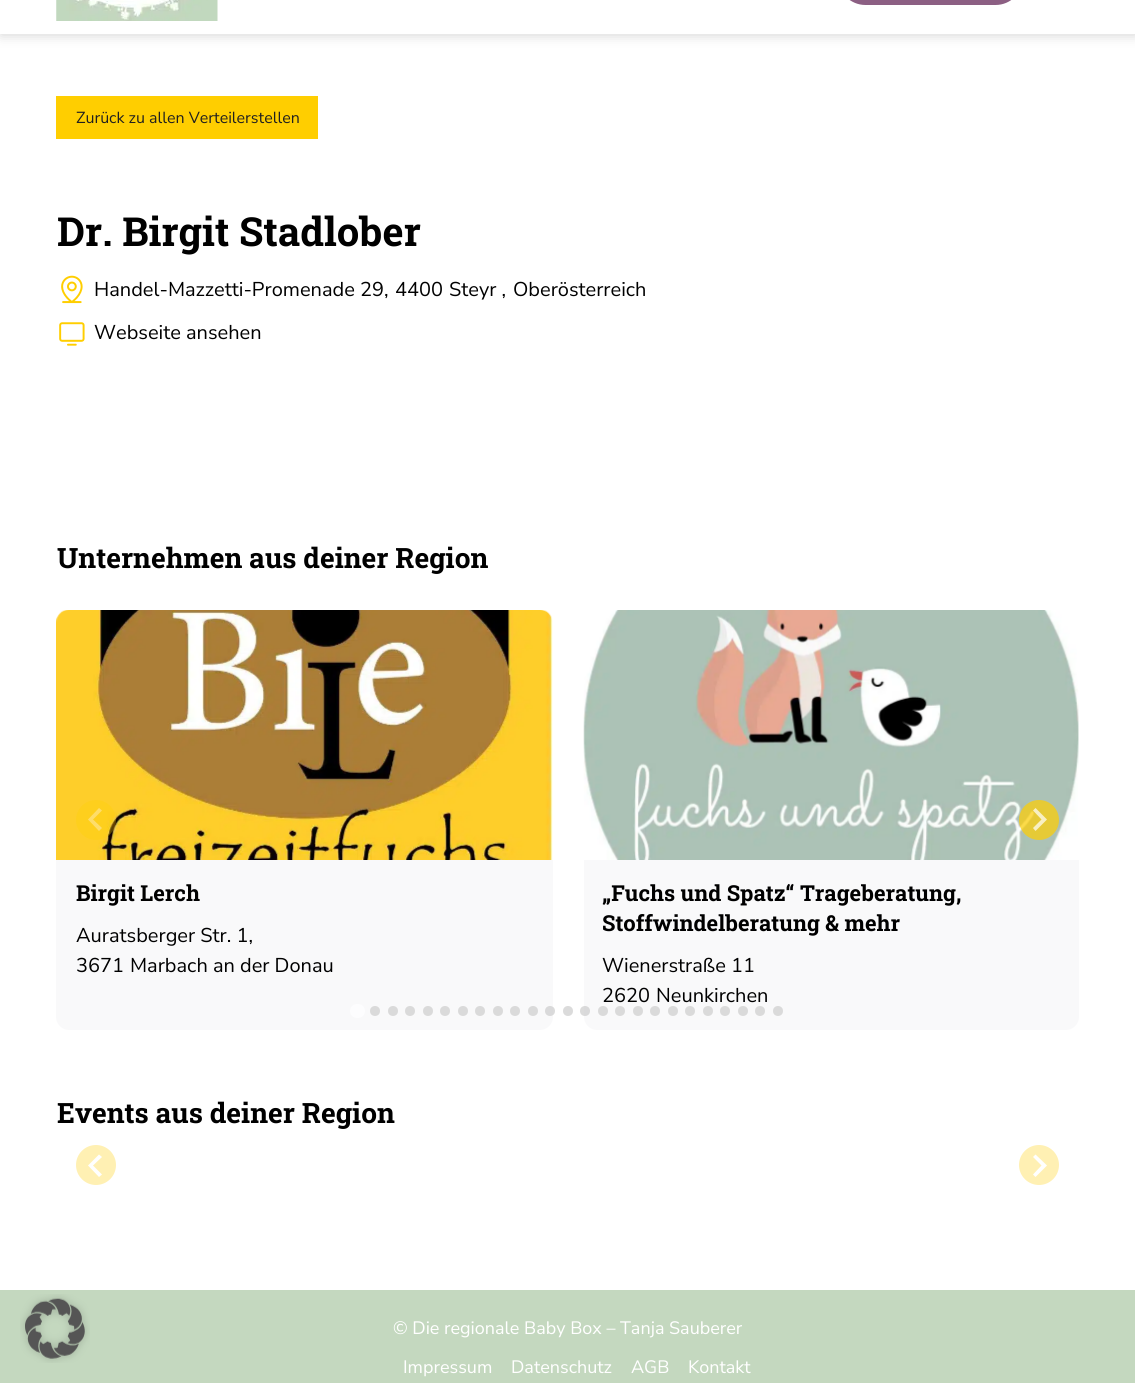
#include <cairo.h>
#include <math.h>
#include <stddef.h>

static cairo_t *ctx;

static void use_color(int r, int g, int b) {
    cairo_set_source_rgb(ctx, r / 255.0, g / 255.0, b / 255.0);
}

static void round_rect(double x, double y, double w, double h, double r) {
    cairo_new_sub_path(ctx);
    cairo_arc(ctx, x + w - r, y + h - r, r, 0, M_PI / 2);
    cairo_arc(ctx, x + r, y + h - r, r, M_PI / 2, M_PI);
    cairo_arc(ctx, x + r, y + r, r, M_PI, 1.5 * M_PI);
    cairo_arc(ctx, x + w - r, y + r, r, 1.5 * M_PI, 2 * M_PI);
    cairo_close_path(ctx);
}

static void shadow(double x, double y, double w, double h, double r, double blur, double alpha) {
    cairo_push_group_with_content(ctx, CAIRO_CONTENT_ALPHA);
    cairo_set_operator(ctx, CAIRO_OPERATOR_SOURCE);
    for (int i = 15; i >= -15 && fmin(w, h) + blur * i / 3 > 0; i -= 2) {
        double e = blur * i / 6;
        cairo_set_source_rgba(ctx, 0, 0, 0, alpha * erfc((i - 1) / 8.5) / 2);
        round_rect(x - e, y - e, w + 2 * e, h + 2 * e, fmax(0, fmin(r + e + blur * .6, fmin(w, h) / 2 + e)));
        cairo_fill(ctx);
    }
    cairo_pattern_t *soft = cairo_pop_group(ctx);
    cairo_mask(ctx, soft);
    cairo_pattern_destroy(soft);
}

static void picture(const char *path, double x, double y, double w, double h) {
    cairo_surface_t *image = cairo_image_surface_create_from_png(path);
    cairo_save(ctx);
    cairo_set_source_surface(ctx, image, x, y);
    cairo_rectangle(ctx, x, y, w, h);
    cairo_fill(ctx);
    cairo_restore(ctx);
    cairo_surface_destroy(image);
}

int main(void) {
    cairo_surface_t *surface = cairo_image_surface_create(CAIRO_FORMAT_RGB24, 1135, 1383);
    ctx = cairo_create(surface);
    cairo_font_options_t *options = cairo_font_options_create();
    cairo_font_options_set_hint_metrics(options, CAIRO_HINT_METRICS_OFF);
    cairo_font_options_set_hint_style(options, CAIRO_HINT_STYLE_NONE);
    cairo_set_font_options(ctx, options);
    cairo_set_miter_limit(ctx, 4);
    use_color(255, 255, 255);
    cairo_paint(ctx);
    use_color(196, 216, 191);
    cairo_rectangle(ctx, 0, 1290, 1135, 93);
    cairo_fill(ctx);
    picture("img1.png", 20, 1294, 70, 69);
    use_color(181, 181, 181);
    shadow(1, -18, 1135, 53, 0, 6, 0.59);
    use_color(255, 255, 255);
    cairo_rectangle(ctx, 0, 0, 1135, 34);
    cairo_fill(ctx);
    use_color(140, 95, 131);
    round_rect(838, -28, 185, 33, 27.5);
    cairo_fill(ctx);
    picture("img2.png", 56, 0, 162, 21);
    use_color(255, 206, 0);
    cairo_rectangle(ctx, 56, 96, 262, 43);
    cairo_fill(ctx);
    cairo_select_font_face(ctx, "Nunito Sans", CAIRO_FONT_SLANT_NORMAL, CAIRO_FONT_WEIGHT_NORMAL);
    cairo_set_font_size(ctx, 16);
    use_color(32, 32, 32);
    cairo_move_to(ctx, 76, 123);
    cairo_show_text(ctx, "Zurück zu allen Verteilerstellen");
    cairo_select_font_face(ctx, "Roboto Slab", CAIRO_FONT_SLANT_NORMAL, CAIRO_FONT_WEIGHT_BOLD);
    cairo_set_font_size(ctx, 40);
    use_color(0, 0, 0);
    cairo_move_to(ctx, 57, 246);
    cairo_show_text(ctx, "Dr. Birgit Stadlober");
    picture("img3.png", 61, 275, 22, 29);
    cairo_select_font_face(ctx, "Nunito Sans", CAIRO_FONT_SLANT_NORMAL, CAIRO_FONT_WEIGHT_NORMAL);
    cairo_set_font_size(ctx, 20);
    cairo_move_to(ctx, 94, 296);
    cairo_show_text(ctx, "Handel-Mazzetti-Promenade 29,");
    cairo_move_to(ctx, 395, 296);
    cairo_show_text(ctx, "4400");
    cairo_move_to(ctx, 449, 296);
    cairo_show_text(ctx, "Steyr ,");
    cairo_move_to(ctx, 513, 296);
    cairo_show_text(ctx, "Oberösterreich");
    picture("img4.png", 59, 322, 26, 24);
    cairo_move_to(ctx, 94, 339);
    cairo_show_text(ctx, "Webseite ansehen");
    cairo_select_font_face(ctx, "Roboto Slab", CAIRO_FONT_SLANT_NORMAL, CAIRO_FONT_WEIGHT_BOLD);
    cairo_set_font_size(ctx, 28);
    cairo_move_to(ctx, 57, 568);
    cairo_show_text(ctx, "Unternehmen aus deiner Region");
    picture("img5.png", 56, 610, 497, 250);
    cairo_set_source_rgba(ctx, 1, 0.808, 0, 0.3);
    cairo_arc(ctx, 96, 820, 20, 0, 2 * M_PI);
    cairo_fill(ctx);
    use_color(254, 221, 106);
    cairo_new_path(ctx);
    cairo_move_to(ctx, 99, 808);
    cairo_line_to(ctx, 102, 810.5);
    cairo_line_to(ctx, 93, 819.5);
    cairo_line_to(ctx, 102, 828);
    cairo_line_to(ctx, 99, 831);
    cairo_line_to(ctx, 88, 819.5);
    cairo_close_path(ctx);
    cairo_fill(ctx);
    picture("img6.png", 583, 610, 496, 250);
    cairo_set_source_rgba(ctx, 1, 0.808, 0, 0.7);
    cairo_arc(ctx, 1039, 820, 20, 0, 2 * M_PI);
    cairo_fill(ctx);
    use_color(248, 239, 195);
    cairo_new_path(ctx);
    cairo_move_to(ctx, 1035.5, 808);
    cairo_line_to(ctx, 1033, 810.5);
    cairo_line_to(ctx, 1041.5, 819.5);
    cairo_line_to(ctx, 1033, 828);
    cairo_line_to(ctx, 1035.5, 831);
    cairo_line_to(ctx, 1047, 819.5);
    cairo_close_path(ctx);
    cairo_fill(ctx);
    use_color(249, 249, 250);
    cairo_new_path(ctx);
    cairo_move_to(ctx, 56, 860);
    cairo_line_to(ctx, 553, 860);
    cairo_line_to(ctx, 553, 1017);
    cairo_curve_to(ctx, 553, 1024, 547, 1030, 540, 1030);
    cairo_line_to(ctx, 69, 1030);
    cairo_curve_to(ctx, 62, 1030, 56, 1024, 56, 1017);
    cairo_close_path(ctx);
    cairo_fill(ctx);
    cairo_set_font_size(ctx, 22);
    use_color(0, 0, 0);
    cairo_move_to(ctx, 76, 901);
    cairo_show_text(ctx, "Birgit Lerch");
    cairo_select_font_face(ctx, "Nunito Sans", CAIRO_FONT_SLANT_NORMAL, CAIRO_FONT_WEIGHT_NORMAL);
    cairo_set_font_size(ctx, 20);
    cairo_move_to(ctx, 76, 942);
    cairo_show_text(ctx, "Auratsberger Str. 1,");
    cairo_move_to(ctx, 76, 972);
    cairo_show_text(ctx, "3671");
    cairo_move_to(ctx, 130, 972);
    cairo_show_text(ctx, "Marbach an der Donau");
    use_color(249, 249, 250);
    cairo_new_path(ctx);
    cairo_move_to(ctx, 584, 860);
    cairo_line_to(ctx, 1079, 860);
    cairo_line_to(ctx, 1079, 1017);
    cairo_curve_to(ctx, 1079, 1024, 1073, 1030, 1066, 1030);
    cairo_line_to(ctx, 597, 1030);
    cairo_curve_to(ctx, 590, 1030, 584, 1024, 584, 1017);
    cairo_close_path(ctx);
    cairo_fill(ctx);
    cairo_select_font_face(ctx, "Roboto Slab", CAIRO_FONT_SLANT_NORMAL, CAIRO_FONT_WEIGHT_BOLD);
    cairo_set_font_size(ctx, 22);
    use_color(0, 0, 0);
    cairo_move_to(ctx, 602, 901);
    cairo_show_text(ctx, "„Fuchs und Spatz“ Trageberatung,");
    cairo_move_to(ctx, 602, 931);
    cairo_show_text(ctx, "Stoffwindelberatung & mehr");
    cairo_select_font_face(ctx, "Nunito Sans", CAIRO_FONT_SLANT_NORMAL, CAIRO_FONT_WEIGHT_NORMAL);
    cairo_set_font_size(ctx, 20);
    cairo_move_to(ctx, 602, 972);
    cairo_show_text(ctx, "Wienerstraße 11");
    cairo_move_to(ctx, 602, 1002);
    cairo_show_text(ctx, "2620");
    cairo_move_to(ctx, 656, 1002);
    cairo_show_text(ctx, "Neunkirchen");
    use_color(253, 253, 254);
    round_rect(350, 1004, 15, 14, 7);
    cairo_fill(ctx);
    use_color(218, 218, 218);
    cairo_arc(ctx, 375, 1011, 5, 0, 2 * M_PI);
    cairo_fill(ctx);
    cairo_arc(ctx, 393, 1011, 5, 0, 2 * M_PI);
    cairo_fill(ctx);
    cairo_arc(ctx, 410, 1011, 5, 0, 2 * M_PI);
    cairo_fill(ctx);
    cairo_arc(ctx, 428, 1011, 5, 0, 2 * M_PI);
    cairo_fill(ctx);
    cairo_arc(ctx, 445, 1011, 5, 0, 2 * M_PI);
    cairo_fill(ctx);
    cairo_arc(ctx, 463, 1011, 5, 0, 2 * M_PI);
    cairo_fill(ctx);
    cairo_arc(ctx, 480, 1011, 5, 0, 2 * M_PI);
    cairo_fill(ctx);
    cairo_arc(ctx, 498, 1011, 5, 0, 2 * M_PI);
    cairo_fill(ctx);
    cairo_arc(ctx, 515, 1011, 5, 0, 2 * M_PI);
    cairo_fill(ctx);
    cairo_arc(ctx, 533, 1011, 5, 0, 2 * M_PI);
    cairo_fill(ctx);
    cairo_set_source_rgba(ctx, 0.8, 0.8, 0.8, 0.7);
    cairo_arc(ctx, 550, 1011, 5, 0, 2 * M_PI);
    cairo_fill(ctx);
    use_color(219, 219, 219);
    cairo_arc(ctx, 568, 1011, 5, 0, 2 * M_PI);
    cairo_fill(ctx);
    cairo_set_source_rgba(ctx, 0.8, 0.8, 0.8, 0.7);
    cairo_arc(ctx, 585, 1011, 5, 0, 2 * M_PI);
    cairo_fill(ctx);
    use_color(218, 218, 218);
    cairo_arc(ctx, 603, 1011, 5, 0, 2 * M_PI);
    cairo_fill(ctx);
    cairo_arc(ctx, 620, 1011, 5, 0, 2 * M_PI);
    cairo_fill(ctx);
    cairo_arc(ctx, 638, 1011, 5, 0, 2 * M_PI);
    cairo_fill(ctx);
    cairo_arc(ctx, 655, 1011, 5, 0, 2 * M_PI);
    cairo_fill(ctx);
    cairo_arc(ctx, 673, 1011, 5, 0, 2 * M_PI);
    cairo_fill(ctx);
    cairo_arc(ctx, 690, 1011, 5, 0, 2 * M_PI);
    cairo_fill(ctx);
    cairo_arc(ctx, 708, 1011, 5, 0, 2 * M_PI);
    cairo_fill(ctx);
    cairo_arc(ctx, 725, 1011, 5, 0, 2 * M_PI);
    cairo_fill(ctx);
    cairo_arc(ctx, 743, 1011, 5, 0, 2 * M_PI);
    cairo_fill(ctx);
    cairo_arc(ctx, 760, 1011, 5, 0, 2 * M_PI);
    cairo_fill(ctx);
    cairo_arc(ctx, 778, 1011, 5, 0, 2 * M_PI);
    cairo_fill(ctx);
    cairo_select_font_face(ctx, "Roboto Slab", CAIRO_FONT_SLANT_NORMAL, CAIRO_FONT_WEIGHT_BOLD);
    cairo_set_font_size(ctx, 28);
    use_color(0, 0, 0);
    cairo_move_to(ctx, 57, 1123);
    cairo_show_text(ctx, "Events aus deiner Region");
    use_color(255, 240, 179);
    cairo_new_path(ctx);
    cairo_arc(ctx, 96, 1165, 20, 0, 2 * M_PI);
    cairo_fill(ctx);
    use_color(255, 255, 255);
    cairo_new_path(ctx);
    cairo_move_to(ctx, 99, 1154.5);
    cairo_line_to(ctx, 102, 1157);
    cairo_line_to(ctx, 93, 1165.5);
    cairo_line_to(ctx, 102, 1174.5);
    cairo_line_to(ctx, 99, 1177);
    cairo_line_to(ctx, 88, 1165.5);
    cairo_close_path(ctx);
    cairo_fill(ctx);
    use_color(255, 240, 179);
    cairo_arc(ctx, 1039, 1165, 20, 0, 2 * M_PI);
    cairo_fill(ctx);
    use_color(255, 255, 255);
    cairo_new_path(ctx);
    cairo_move_to(ctx, 1035.5, 1154.5);
    cairo_line_to(ctx, 1033, 1157);
    cairo_line_to(ctx, 1041.5, 1165.5);
    cairo_line_to(ctx, 1033, 1174.5);
    cairo_line_to(ctx, 1035.5, 1177);
    cairo_line_to(ctx, 1047, 1165.5);
    cairo_close_path(ctx);
    cairo_fill(ctx);
    cairo_select_font_face(ctx, "Nunito Sans", CAIRO_FONT_SLANT_NORMAL, CAIRO_FONT_WEIGHT_NORMAL);
    cairo_set_font_size(ctx, 18);
    cairo_move_to(ctx, 393, 1334);
    cairo_show_text(ctx, "© Die regionale Baby Box – Tanja Sauberer");
    cairo_move_to(ctx, 403, 1373);
    cairo_show_text(ctx, "Impressum");
    cairo_move_to(ctx, 511, 1373);
    cairo_show_text(ctx, "Datenschutz");
    cairo_move_to(ctx, 631, 1373);
    cairo_show_text(ctx, "AGB");
    cairo_move_to(ctx, 688, 1373);
    cairo_show_text(ctx, "Kontakt");
    cairo_surface_write_to_png(surface, "result.png");
    cairo_font_options_destroy(options);
    cairo_destroy(ctx);
    cairo_surface_destroy(surface);
    return 0;
}
